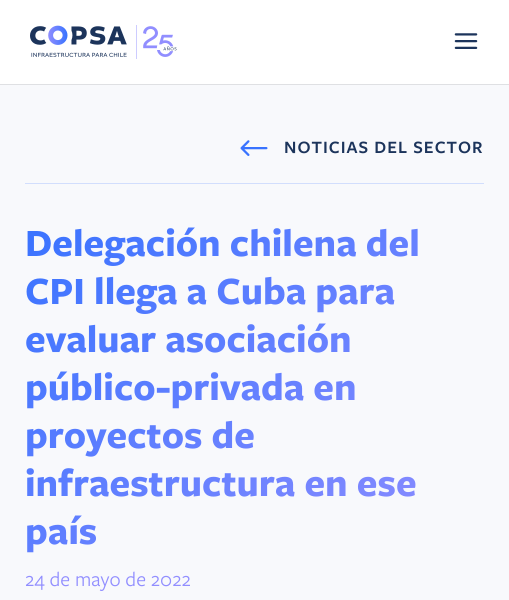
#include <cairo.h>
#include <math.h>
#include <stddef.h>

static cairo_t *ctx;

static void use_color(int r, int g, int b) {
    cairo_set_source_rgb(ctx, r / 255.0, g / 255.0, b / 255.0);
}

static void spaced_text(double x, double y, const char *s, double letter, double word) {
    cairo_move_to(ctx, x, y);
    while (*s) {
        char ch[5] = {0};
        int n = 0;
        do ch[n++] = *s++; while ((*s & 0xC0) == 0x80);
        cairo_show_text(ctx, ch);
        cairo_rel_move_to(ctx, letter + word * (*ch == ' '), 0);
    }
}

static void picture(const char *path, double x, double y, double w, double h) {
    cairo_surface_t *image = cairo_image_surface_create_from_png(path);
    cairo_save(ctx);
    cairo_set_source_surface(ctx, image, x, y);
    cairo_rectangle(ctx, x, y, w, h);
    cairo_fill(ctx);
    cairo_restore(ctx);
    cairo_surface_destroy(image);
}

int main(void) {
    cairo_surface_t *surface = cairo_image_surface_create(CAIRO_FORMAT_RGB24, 509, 600);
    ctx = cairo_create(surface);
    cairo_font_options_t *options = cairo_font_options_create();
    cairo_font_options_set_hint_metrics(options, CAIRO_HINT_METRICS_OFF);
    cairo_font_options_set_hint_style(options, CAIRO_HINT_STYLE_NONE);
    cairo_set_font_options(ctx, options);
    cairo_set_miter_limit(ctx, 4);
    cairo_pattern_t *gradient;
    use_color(248, 249, 252);
    cairo_paint(ctx);
    use_color(223, 224, 227);
    cairo_rectangle(ctx, 0, 84, 509, 1);
    cairo_fill(ctx);
    use_color(255, 255, 255);
    cairo_rectangle(ctx, 0, 0, 509, 84);
    cairo_fill(ctx);
    picture("img1.png", 30, 25, 147, 34);
    picture("img2.png", 454, 33, 24, 16);
    use_color(210, 222, 253);
    cairo_rectangle(ctx, 25, 183, 459, 1);
    cairo_fill(ctx);
    picture("img3.png", 240, 140, 28, 16);
    cairo_select_font_face(ctx, "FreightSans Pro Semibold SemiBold", CAIRO_FONT_SLANT_NORMAL, CAIRO_FONT_WEIGHT_NORMAL);
    cairo_set_font_size(ctx, 18);
    use_color(28, 52, 91);
    spaced_text(284, 153, "NOTICIAS DEL SECTOR", 1, 0);
    cairo_select_font_face(ctx, "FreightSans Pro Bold", CAIRO_FONT_SLANT_NORMAL, CAIRO_FONT_WEIGHT_BOLD);
    cairo_set_font_size(ctx, 40);
    gradient = cairo_pattern_create_linear(53, 190, 456, 592);
    cairo_pattern_add_color_stop_rgba(gradient, 0, 0.224, 0.451, 1, 1);
    cairo_pattern_add_color_stop_rgba(gradient, 1, 0.569, 0.557, 1, 1);
    cairo_set_source(ctx, gradient);
    cairo_pattern_destroy(gradient);
    cairo_move_to(ctx, 25, 256);
    cairo_show_text(ctx, "Delegación chilena del");
    cairo_move_to(ctx, 25, 304);
    cairo_show_text(ctx, "CPI llega a Cuba para");
    cairo_move_to(ctx, 25, 352);
    cairo_show_text(ctx, "evaluar asociación");
    cairo_move_to(ctx, 25, 400);
    cairo_show_text(ctx, "público-privada en");
    cairo_move_to(ctx, 25, 448);
    cairo_show_text(ctx, "proyectos de");
    cairo_move_to(ctx, 25, 496);
    cairo_show_text(ctx, "infraestructura en ese");
    cairo_move_to(ctx, 25, 544);
    cairo_show_text(ctx, "país");
    cairo_select_font_face(ctx, "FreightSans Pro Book", CAIRO_FONT_SLANT_NORMAL, CAIRO_FONT_WEIGHT_NORMAL);
    cairo_set_font_size(ctx, 21);
    use_color(145, 142, 255);
    cairo_move_to(ctx, 25, 586);
    cairo_show_text(ctx, "24 de mayo de 2022");
    cairo_surface_write_to_png(surface, "result.png");
    cairo_font_options_destroy(options);
    cairo_destroy(ctx);
    cairo_surface_destroy(surface);
    return 0;
}
